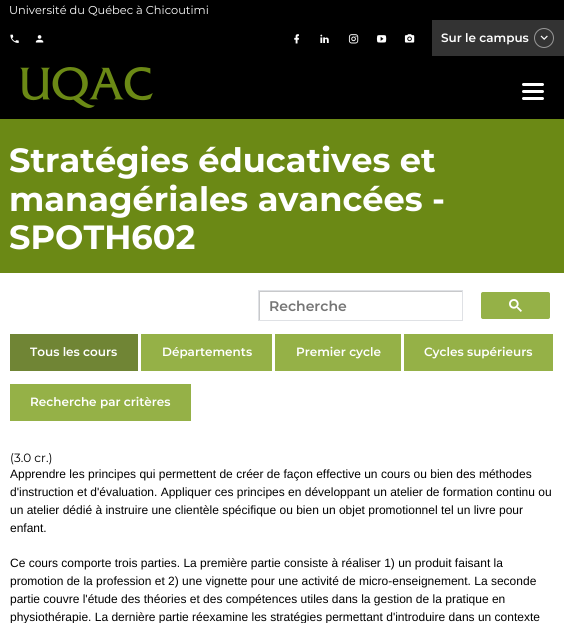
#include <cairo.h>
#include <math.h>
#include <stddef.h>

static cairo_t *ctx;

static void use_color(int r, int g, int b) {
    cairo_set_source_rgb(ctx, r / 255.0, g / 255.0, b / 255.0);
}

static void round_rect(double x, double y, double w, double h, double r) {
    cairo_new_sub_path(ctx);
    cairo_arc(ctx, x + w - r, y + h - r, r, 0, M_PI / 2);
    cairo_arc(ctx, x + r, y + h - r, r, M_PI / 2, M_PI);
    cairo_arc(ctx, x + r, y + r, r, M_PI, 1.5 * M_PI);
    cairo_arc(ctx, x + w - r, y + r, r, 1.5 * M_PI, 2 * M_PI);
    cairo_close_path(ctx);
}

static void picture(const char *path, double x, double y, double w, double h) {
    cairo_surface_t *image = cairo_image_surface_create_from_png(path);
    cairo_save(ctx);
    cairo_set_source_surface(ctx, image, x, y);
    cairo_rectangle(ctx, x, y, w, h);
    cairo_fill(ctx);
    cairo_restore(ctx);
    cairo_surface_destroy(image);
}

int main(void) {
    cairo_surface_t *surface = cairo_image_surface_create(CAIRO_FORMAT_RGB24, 564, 623);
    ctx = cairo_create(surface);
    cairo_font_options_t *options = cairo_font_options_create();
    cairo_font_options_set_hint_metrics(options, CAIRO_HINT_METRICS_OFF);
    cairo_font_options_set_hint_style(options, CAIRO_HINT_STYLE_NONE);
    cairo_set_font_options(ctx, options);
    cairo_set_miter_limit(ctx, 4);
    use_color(255, 255, 255);
    cairo_paint(ctx);
    use_color(0, 0, 0);
    cairo_rectangle(ctx, 0, 0, 564, 119);
    cairo_fill(ctx);
    cairo_select_font_face(ctx, "Montserrat", CAIRO_FONT_SLANT_NORMAL, CAIRO_FONT_WEIGHT_NORMAL);
    cairo_set_font_size(ctx, 11.4);
    use_color(255, 255, 255);
    cairo_move_to(ctx, 9, 14);
    cairo_show_text(ctx, "Université du Québec à Chicoutimi");
    picture("img1.png", 10, 34, 9, 9);
    picture("img2.png", 35, 35, 9, 8);
    picture("img3.png", 294, 34, 5, 10);
    picture("img4.png", 320, 34, 9, 9);
    picture("img5.png", 348, 34, 11, 10);
    picture("img6.png", 376, 35, 11, 8);
    picture("img7.png", 404, 34, 11, 9);
    use_color(51, 51, 51);
    cairo_rectangle(ctx, 432, 20, 132, 36);
    cairo_fill(ctx);
    cairo_select_font_face(ctx, "Montserrat SemiBold", CAIRO_FONT_SLANT_NORMAL, CAIRO_FONT_WEIGHT_NORMAL);
    cairo_set_font_size(ctx, 12);
    use_color(255, 255, 255);
    cairo_move_to(ctx, 441, 42);
    cairo_show_text(ctx, "Sur le campus");
    cairo_new_path(ctx);
    cairo_arc(ctx, 544, 38, 9.5, 0, 2 * M_PI);
    use_color(153, 153, 153);
    cairo_set_line_width(ctx, 1);
    cairo_stroke(ctx);
    picture("img8.png", 540, 35, 8, 5);
    picture("img9.png", 20, 67, 133, 41);
    use_color(255, 255, 255);
    round_rect(522, 83, 22, 3, 1.5);
    cairo_fill(ctx);
    round_rect(522, 90, 22, 3, 1.5);
    cairo_fill(ctx);
    round_rect(522, 97, 22, 3, 1.5);
    cairo_fill(ctx);
    use_color(107, 137, 21);
    cairo_rectangle(ctx, 0, 119, 564, 154);
    cairo_fill(ctx);
    cairo_select_font_face(ctx, "Montserrat", CAIRO_FONT_SLANT_NORMAL, CAIRO_FONT_WEIGHT_BOLD);
    cairo_set_font_size(ctx, 33.6);
    use_color(255, 255, 255);
    cairo_move_to(ctx, 9, 172);
    cairo_show_text(ctx, "Stratégies éducatives et");
    cairo_move_to(ctx, 9, 211);
    cairo_show_text(ctx, "managériales avancées -");
    cairo_move_to(ctx, 9, 249);
    cairo_show_text(ctx, "SPOTH602");
    cairo_rectangle(ctx, 258.5, 290.5, 204, 30);
    use_color(223, 225, 229);
    cairo_stroke(ctx);
    use_color(200, 201, 203);
    cairo_rectangle(ctx, 259, 291, 203, 1);
    cairo_fill(ctx);
    cairo_rectangle(ctx, 259, 291, 1, 29);
    cairo_fill(ctx);
    cairo_select_font_face(ctx, "Montserrat SemiBold", CAIRO_FONT_SLANT_NORMAL, CAIRO_FONT_WEIGHT_NORMAL);
    cairo_set_font_size(ctx, 14);
    use_color(117, 117, 117);
    cairo_move_to(ctx, 269, 311);
    cairo_show_text(ctx, "Recherche");
    use_color(149, 177, 71);
    round_rect(481.5, 292.5, 68, 26, 1.5);
    cairo_fill_preserve(ctx);
    cairo_stroke(ctx);
    picture("img10.png", 509, 299, 13, 13);
    use_color(112, 133, 53);
    cairo_rectangle(ctx, 10, 334, 128, 37);
    cairo_fill(ctx);
    cairo_set_font_size(ctx, 12);
    use_color(255, 255, 255);
    cairo_move_to(ctx, 30, 356);
    cairo_show_text(ctx, "Tous les cours");
    use_color(149, 177, 71);
    cairo_rectangle(ctx, 141, 334, 131, 37);
    cairo_fill(ctx);
    use_color(255, 255, 255);
    cairo_move_to(ctx, 162, 356);
    cairo_show_text(ctx, "Départements");
    use_color(149, 177, 71);
    cairo_rectangle(ctx, 275, 334, 126, 37);
    cairo_fill(ctx);
    use_color(255, 255, 255);
    cairo_move_to(ctx, 296, 356);
    cairo_show_text(ctx, "Premier cycle");
    use_color(149, 177, 71);
    cairo_rectangle(ctx, 404, 334, 149, 37);
    cairo_fill(ctx);
    use_color(255, 255, 255);
    cairo_move_to(ctx, 424, 356);
    cairo_show_text(ctx, "Cycles supérieurs");
    use_color(149, 177, 71);
    cairo_rectangle(ctx, 10, 384, 181, 37);
    cairo_fill(ctx);
    use_color(255, 255, 255);
    cairo_move_to(ctx, 30, 406);
    cairo_show_text(ctx, "Recherche par critères");
    cairo_select_font_face(ctx, "Montserrat", CAIRO_FONT_SLANT_NORMAL, CAIRO_FONT_WEIGHT_NORMAL);
    use_color(0, 0, 0);
    cairo_move_to(ctx, 10, 462);
    cairo_show_text(ctx, "(3.0 cr.)");
    cairo_select_font_face(ctx, "Liberation Sans", CAIRO_FONT_SLANT_NORMAL, CAIRO_FONT_WEIGHT_NORMAL);
    cairo_move_to(ctx, 10, 478);
    cairo_show_text(ctx, "Apprendre les principes qui permettent de créer de façon effective un cours ou bien des méthodes");
    cairo_move_to(ctx, 10, 496);
    cairo_show_text(ctx, "d'instruction et d'évaluation. Appliquer ces principes en développant un atelier de formation continu ou");
    cairo_move_to(ctx, 10, 514);
    cairo_show_text(ctx, "un atelier dédié à instruire une clientèle spécifique ou bien un objet promotionnel tel un livre pour");
    cairo_move_to(ctx, 10, 532);
    cairo_show_text(ctx, "enfant.");
    cairo_move_to(ctx, 10, 567);
    cairo_show_text(ctx, "Ce cours comporte trois parties. La première partie consiste à réaliser 1) un produit faisant la");
    cairo_move_to(ctx, 10, 585);
    cairo_show_text(ctx, "promotion de la profession et 2) une vignette pour une activité de micro-enseignement. La seconde");
    cairo_move_to(ctx, 10, 603);
    cairo_show_text(ctx, "partie couvre l'étude des théories et des compétences utiles dans la gestion de la pratique en");
    cairo_move_to(ctx, 10, 621);
    cairo_show_text(ctx, "physiothérapie. La dernière partie réexamine les stratégies permettant d'introduire dans un contexte");
    cairo_surface_write_to_png(surface, "result.png");
    cairo_font_options_destroy(options);
    cairo_destroy(ctx);
    cairo_surface_destroy(surface);
    return 0;
}
